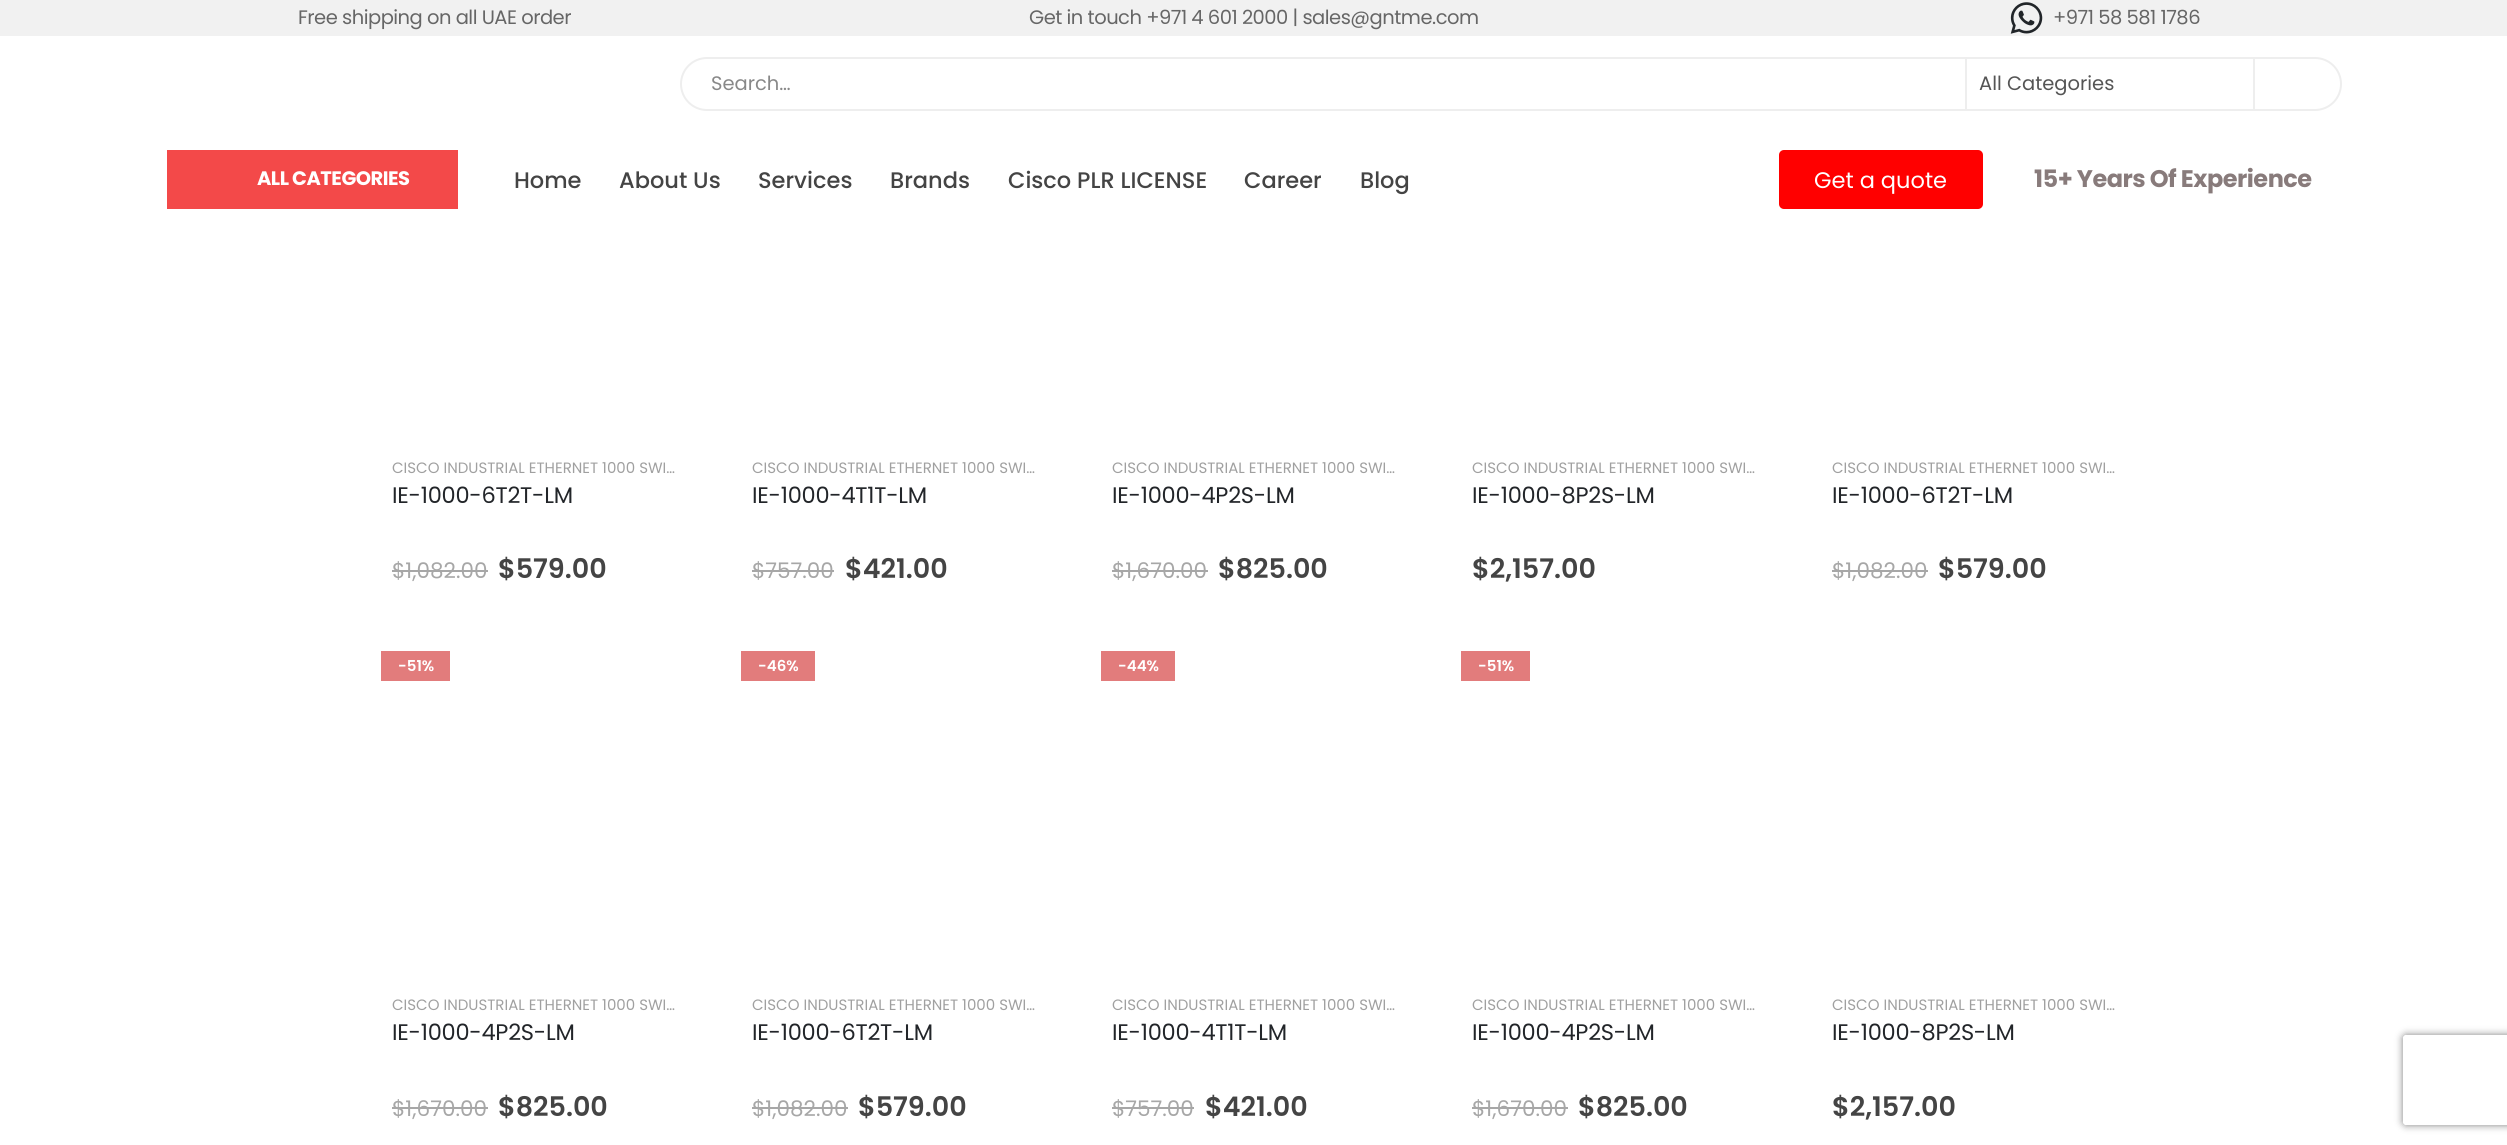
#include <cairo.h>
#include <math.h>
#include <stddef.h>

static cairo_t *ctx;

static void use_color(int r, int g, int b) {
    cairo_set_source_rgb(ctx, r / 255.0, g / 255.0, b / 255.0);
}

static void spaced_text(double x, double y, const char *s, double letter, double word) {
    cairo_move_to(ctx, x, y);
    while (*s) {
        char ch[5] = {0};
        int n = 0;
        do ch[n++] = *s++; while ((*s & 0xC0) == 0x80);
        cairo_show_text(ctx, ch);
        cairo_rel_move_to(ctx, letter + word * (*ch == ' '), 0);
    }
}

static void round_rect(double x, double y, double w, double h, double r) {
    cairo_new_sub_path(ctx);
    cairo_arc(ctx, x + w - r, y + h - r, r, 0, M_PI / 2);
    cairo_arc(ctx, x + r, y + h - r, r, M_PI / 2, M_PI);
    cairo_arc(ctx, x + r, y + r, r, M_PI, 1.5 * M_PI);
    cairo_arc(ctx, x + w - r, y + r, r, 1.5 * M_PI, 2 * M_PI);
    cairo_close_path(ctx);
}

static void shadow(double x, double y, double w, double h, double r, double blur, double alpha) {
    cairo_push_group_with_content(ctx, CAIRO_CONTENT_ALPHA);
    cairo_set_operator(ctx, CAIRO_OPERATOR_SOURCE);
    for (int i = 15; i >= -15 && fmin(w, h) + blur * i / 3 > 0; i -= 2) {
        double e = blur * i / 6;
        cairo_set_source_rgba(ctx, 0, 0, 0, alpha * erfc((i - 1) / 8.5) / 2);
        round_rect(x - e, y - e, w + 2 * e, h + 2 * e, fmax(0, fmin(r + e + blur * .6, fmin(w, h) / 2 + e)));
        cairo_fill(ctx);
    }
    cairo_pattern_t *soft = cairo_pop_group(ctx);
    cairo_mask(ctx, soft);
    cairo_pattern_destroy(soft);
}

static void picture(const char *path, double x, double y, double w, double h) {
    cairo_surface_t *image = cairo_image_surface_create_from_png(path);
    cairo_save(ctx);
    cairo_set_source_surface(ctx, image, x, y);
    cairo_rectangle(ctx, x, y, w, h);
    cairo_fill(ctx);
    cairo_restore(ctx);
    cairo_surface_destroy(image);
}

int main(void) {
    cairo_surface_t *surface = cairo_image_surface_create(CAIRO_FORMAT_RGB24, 2507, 1145);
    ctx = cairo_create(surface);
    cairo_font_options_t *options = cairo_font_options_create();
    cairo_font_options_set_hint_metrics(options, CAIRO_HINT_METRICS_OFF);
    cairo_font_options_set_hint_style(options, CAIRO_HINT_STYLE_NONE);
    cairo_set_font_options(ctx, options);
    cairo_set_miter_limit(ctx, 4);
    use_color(255, 255, 255);
    cairo_paint(ctx);
    use_color(241, 241, 241);
    cairo_rectangle(ctx, 0, 0, 2507, 36);
    cairo_fill(ctx);
    cairo_select_font_face(ctx, "Poppins", CAIRO_FONT_SLANT_NORMAL, CAIRO_FONT_WEIGHT_NORMAL);
    cairo_set_font_size(ctx, 19.5);
    use_color(102, 102, 102);
    spaced_text(298, 24, "Free shipping on all UAE order", -0.5, 0);
    spaced_text(1029, 24, "Get in touch +971 4 601 2000 | sales@gntme.com", -0.5, 0);
    picture("img1.png", 2010, 2, 33, 32);
    spaced_text(2053, 24, "+971 58 581 1786", -0.5, 0);
    round_rect(681, 58, 1660, 52, 26);
    use_color(238, 238, 238);
    cairo_stroke(ctx);
    use_color(136, 136, 136);
    cairo_move_to(ctx, 711, 90);
    cairo_show_text(ctx, "Search…");
    use_color(238, 238, 238);
    cairo_rectangle(ctx, 2253, 59, 2, 51);
    cairo_fill(ctx);
    cairo_rectangle(ctx, 1965, 59, 2, 51);
    cairo_fill(ctx);
    use_color(85, 85, 85);
    cairo_move_to(ctx, 1979, 90);
    cairo_show_text(ctx, "All Categories");
    use_color(243, 73, 73);
    cairo_rectangle(ctx, 167, 150, 291, 59);
    cairo_fill(ctx);
    cairo_select_font_face(ctx, "Poppins", CAIRO_FONT_SLANT_NORMAL, CAIRO_FONT_WEIGHT_BOLD);
    use_color(255, 255, 255);
    spaced_text(257, 185, "ALL CATEGORIES", -0.5, 0);
    cairo_select_font_face(ctx, "Poppins Medium", CAIRO_FONT_SLANT_NORMAL, CAIRO_FONT_WEIGHT_NORMAL);
    cairo_set_font_size(ctx, 22.5);
    use_color(68, 68, 68);
    cairo_move_to(ctx, 514, 188);
    cairo_show_text(ctx, "Home");
    cairo_move_to(ctx, 619, 188);
    cairo_show_text(ctx, "About Us");
    cairo_move_to(ctx, 758, 188);
    cairo_show_text(ctx, "Services");
    cairo_move_to(ctx, 890, 188);
    cairo_show_text(ctx, "Brands");
    cairo_move_to(ctx, 1008, 188);
    cairo_show_text(ctx, "Cisco PLR LICENSE");
    cairo_move_to(ctx, 1244, 188);
    cairo_show_text(ctx, "Career");
    cairo_move_to(ctx, 1360, 188);
    cairo_show_text(ctx, "Blog");
    use_color(255, 0, 0);
    round_rect(1779, 150, 204, 59, 5);
    cairo_fill(ctx);
    cairo_select_font_face(ctx, "Poppins", CAIRO_FONT_SLANT_NORMAL, CAIRO_FONT_WEIGHT_NORMAL);
    use_color(255, 255, 255);
    cairo_move_to(ctx, 1814, 188);
    cairo_show_text(ctx, "Get a quote");
    cairo_select_font_face(ctx, "Poppins", CAIRO_FONT_SLANT_NORMAL, CAIRO_FONT_WEIGHT_BOLD);
    cairo_set_font_size(ctx, 24);
    use_color(136, 123, 123);
    spaced_text(2034, 187, "15+ Years Of Experience", -0.5, 0);
    cairo_select_font_face(ctx, "Poppins", CAIRO_FONT_SLANT_NORMAL, CAIRO_FONT_WEIGHT_NORMAL);
    cairo_set_font_size(ctx, 15);
    use_color(160, 160, 160);
    cairo_move_to(ctx, 392, 473);
    cairo_show_text(ctx, "CISCO INDUSTRIAL ETHERNET 1000 SWI…");
    cairo_set_font_size(ctx, 22.5);
    use_color(34, 37, 41);
    spaced_text(392, 503, "IE-1000-6T2T-LM", -0.25, 0);
    cairo_set_font_size(ctx, 21.5);
    use_color(167, 167, 167);
    cairo_move_to(ctx, 392, 578);
    cairo_show_text(ctx, "$1,082.00");
    cairo_rectangle(ctx, 392, 570, 96, 2);
    cairo_fill(ctx);
    cairo_select_font_face(ctx, "Poppins SemiBold", CAIRO_FONT_SLANT_NORMAL, CAIRO_FONT_WEIGHT_NORMAL);
    cairo_set_font_size(ctx, 27);
    use_color(68, 68, 68);
    cairo_move_to(ctx, 498, 578);
    cairo_show_text(ctx, "$579.00");
    cairo_select_font_face(ctx, "Poppins", CAIRO_FONT_SLANT_NORMAL, CAIRO_FONT_WEIGHT_NORMAL);
    cairo_set_font_size(ctx, 15);
    use_color(160, 160, 160);
    cairo_move_to(ctx, 752, 473);
    cairo_show_text(ctx, "CISCO INDUSTRIAL ETHERNET 1000 SWI…");
    cairo_set_font_size(ctx, 22.5);
    use_color(34, 37, 41);
    spaced_text(752, 503, "IE-1000-4T1T-LM", -0.25, 0);
    cairo_set_font_size(ctx, 21.5);
    use_color(167, 167, 167);
    cairo_move_to(ctx, 752, 578);
    cairo_show_text(ctx, "$757.00");
    cairo_rectangle(ctx, 752, 570, 82, 2);
    cairo_fill(ctx);
    cairo_select_font_face(ctx, "Poppins SemiBold", CAIRO_FONT_SLANT_NORMAL, CAIRO_FONT_WEIGHT_NORMAL);
    cairo_set_font_size(ctx, 27);
    use_color(68, 68, 68);
    cairo_move_to(ctx, 845, 578);
    cairo_show_text(ctx, "$421.00");
    cairo_select_font_face(ctx, "Poppins", CAIRO_FONT_SLANT_NORMAL, CAIRO_FONT_WEIGHT_NORMAL);
    cairo_set_font_size(ctx, 15);
    use_color(160, 160, 160);
    cairo_move_to(ctx, 1112, 473);
    cairo_show_text(ctx, "CISCO INDUSTRIAL ETHERNET 1000 SWI…");
    cairo_set_font_size(ctx, 22.5);
    use_color(34, 37, 41);
    spaced_text(1112, 503, "IE-1000-4P2S-LM", -0.25, 0);
    cairo_set_font_size(ctx, 21.5);
    use_color(167, 167, 167);
    cairo_move_to(ctx, 1112, 578);
    cairo_show_text(ctx, "$1,670.00");
    cairo_rectangle(ctx, 1112, 570, 96, 2);
    cairo_fill(ctx);
    cairo_select_font_face(ctx, "Poppins SemiBold", CAIRO_FONT_SLANT_NORMAL, CAIRO_FONT_WEIGHT_NORMAL);
    cairo_set_font_size(ctx, 27);
    use_color(68, 68, 68);
    cairo_move_to(ctx, 1218, 578);
    cairo_show_text(ctx, "$825.00");
    cairo_select_font_face(ctx, "Poppins", CAIRO_FONT_SLANT_NORMAL, CAIRO_FONT_WEIGHT_NORMAL);
    cairo_set_font_size(ctx, 15);
    use_color(160, 160, 160);
    cairo_move_to(ctx, 1472, 473);
    cairo_show_text(ctx, "CISCO INDUSTRIAL ETHERNET 1000 SWI…");
    cairo_set_font_size(ctx, 22.5);
    use_color(34, 37, 41);
    spaced_text(1472, 503, "IE-1000-8P2S-LM", -0.25, 0);
    cairo_select_font_face(ctx, "Poppins SemiBold", CAIRO_FONT_SLANT_NORMAL, CAIRO_FONT_WEIGHT_NORMAL);
    cairo_set_font_size(ctx, 27);
    use_color(68, 68, 68);
    cairo_move_to(ctx, 1472, 578);
    cairo_show_text(ctx, "$2,157.00");
    cairo_select_font_face(ctx, "Poppins", CAIRO_FONT_SLANT_NORMAL, CAIRO_FONT_WEIGHT_NORMAL);
    cairo_set_font_size(ctx, 15);
    use_color(160, 160, 160);
    cairo_move_to(ctx, 1832, 473);
    cairo_show_text(ctx, "CISCO INDUSTRIAL ETHERNET 1000 SWI…");
    cairo_set_font_size(ctx, 22.5);
    use_color(34, 37, 41);
    spaced_text(1832, 503, "IE-1000-6T2T-LM", -0.25, 0);
    cairo_set_font_size(ctx, 21.5);
    use_color(167, 167, 167);
    cairo_move_to(ctx, 1832, 578);
    cairo_show_text(ctx, "$1,082.00");
    cairo_rectangle(ctx, 1832, 570, 96, 2);
    cairo_fill(ctx);
    cairo_select_font_face(ctx, "Poppins SemiBold", CAIRO_FONT_SLANT_NORMAL, CAIRO_FONT_WEIGHT_NORMAL);
    cairo_set_font_size(ctx, 27);
    use_color(68, 68, 68);
    cairo_move_to(ctx, 1938, 578);
    cairo_show_text(ctx, "$579.00");
    use_color(226, 124, 124);
    cairo_rectangle(ctx, 381, 651, 69, 30);
    cairo_fill(ctx);
    cairo_set_font_size(ctx, 15);
    use_color(255, 255, 255);
    cairo_move_to(ctx, 398, 671);
    cairo_show_text(ctx, "-51%");
    cairo_select_font_face(ctx, "Poppins", CAIRO_FONT_SLANT_NORMAL, CAIRO_FONT_WEIGHT_NORMAL);
    use_color(160, 160, 160);
    cairo_move_to(ctx, 392, 1010);
    cairo_show_text(ctx, "CISCO INDUSTRIAL ETHERNET 1000 SWI…");
    cairo_set_font_size(ctx, 22.5);
    use_color(34, 37, 41);
    spaced_text(392, 1040, "IE-1000-4P2S-LM", -0.25, 0);
    cairo_set_font_size(ctx, 21.5);
    use_color(167, 167, 167);
    cairo_move_to(ctx, 392, 1116);
    cairo_show_text(ctx, "$1,670.00");
    cairo_rectangle(ctx, 392, 1107, 96, 2);
    cairo_fill(ctx);
    cairo_select_font_face(ctx, "Poppins SemiBold", CAIRO_FONT_SLANT_NORMAL, CAIRO_FONT_WEIGHT_NORMAL);
    cairo_set_font_size(ctx, 27);
    use_color(68, 68, 68);
    cairo_move_to(ctx, 498, 1116);
    cairo_show_text(ctx, "$825.00");
    use_color(226, 124, 124);
    cairo_rectangle(ctx, 741, 651, 74, 30);
    cairo_fill(ctx);
    cairo_set_font_size(ctx, 15);
    use_color(255, 255, 255);
    cairo_move_to(ctx, 758, 671);
    cairo_show_text(ctx, "-46%");
    cairo_select_font_face(ctx, "Poppins", CAIRO_FONT_SLANT_NORMAL, CAIRO_FONT_WEIGHT_NORMAL);
    use_color(160, 160, 160);
    cairo_move_to(ctx, 752, 1010);
    cairo_show_text(ctx, "CISCO INDUSTRIAL ETHERNET 1000 SWI…");
    cairo_set_font_size(ctx, 22.5);
    use_color(34, 37, 41);
    spaced_text(752, 1040, "IE-1000-6T2T-LM", -0.25, 0);
    cairo_set_font_size(ctx, 21.5);
    use_color(167, 167, 167);
    cairo_move_to(ctx, 752, 1116);
    cairo_show_text(ctx, "$1,082.00");
    cairo_rectangle(ctx, 752, 1107, 96, 2);
    cairo_fill(ctx);
    cairo_select_font_face(ctx, "Poppins SemiBold", CAIRO_FONT_SLANT_NORMAL, CAIRO_FONT_WEIGHT_NORMAL);
    cairo_set_font_size(ctx, 27);
    use_color(68, 68, 68);
    cairo_move_to(ctx, 858, 1116);
    cairo_show_text(ctx, "$579.00");
    use_color(226, 124, 124);
    cairo_rectangle(ctx, 1101, 651, 74, 30);
    cairo_fill(ctx);
    cairo_set_font_size(ctx, 15);
    use_color(255, 255, 255);
    cairo_move_to(ctx, 1118, 671);
    cairo_show_text(ctx, "-44%");
    cairo_select_font_face(ctx, "Poppins", CAIRO_FONT_SLANT_NORMAL, CAIRO_FONT_WEIGHT_NORMAL);
    use_color(160, 160, 160);
    cairo_move_to(ctx, 1112, 1010);
    cairo_show_text(ctx, "CISCO INDUSTRIAL ETHERNET 1000 SWI…");
    cairo_set_font_size(ctx, 22.5);
    use_color(34, 37, 41);
    spaced_text(1112, 1040, "IE-1000-4T1T-LM", -0.25, 0);
    cairo_set_font_size(ctx, 21.5);
    use_color(167, 167, 167);
    cairo_move_to(ctx, 1112, 1116);
    cairo_show_text(ctx, "$757.00");
    cairo_rectangle(ctx, 1112, 1107, 82, 2);
    cairo_fill(ctx);
    cairo_select_font_face(ctx, "Poppins SemiBold", CAIRO_FONT_SLANT_NORMAL, CAIRO_FONT_WEIGHT_NORMAL);
    cairo_set_font_size(ctx, 27);
    use_color(68, 68, 68);
    cairo_move_to(ctx, 1205, 1116);
    cairo_show_text(ctx, "$421.00");
    use_color(226, 124, 124);
    cairo_rectangle(ctx, 1461, 651, 69, 30);
    cairo_fill(ctx);
    cairo_set_font_size(ctx, 15);
    use_color(255, 255, 255);
    cairo_move_to(ctx, 1478, 671);
    cairo_show_text(ctx, "-51%");
    cairo_select_font_face(ctx, "Poppins", CAIRO_FONT_SLANT_NORMAL, CAIRO_FONT_WEIGHT_NORMAL);
    use_color(160, 160, 160);
    cairo_move_to(ctx, 1472, 1010);
    cairo_show_text(ctx, "CISCO INDUSTRIAL ETHERNET 1000 SWI…");
    cairo_set_font_size(ctx, 22.5);
    use_color(34, 37, 41);
    spaced_text(1472, 1040, "IE-1000-4P2S-LM", -0.25, 0);
    cairo_set_font_size(ctx, 21.5);
    use_color(167, 167, 167);
    cairo_move_to(ctx, 1472, 1116);
    cairo_show_text(ctx, "$1,670.00");
    cairo_rectangle(ctx, 1472, 1107, 96, 2);
    cairo_fill(ctx);
    cairo_select_font_face(ctx, "Poppins SemiBold", CAIRO_FONT_SLANT_NORMAL, CAIRO_FONT_WEIGHT_NORMAL);
    cairo_set_font_size(ctx, 27);
    use_color(68, 68, 68);
    cairo_move_to(ctx, 1578, 1116);
    cairo_show_text(ctx, "$825.00");
    cairo_select_font_face(ctx, "Poppins", CAIRO_FONT_SLANT_NORMAL, CAIRO_FONT_WEIGHT_NORMAL);
    cairo_set_font_size(ctx, 15);
    use_color(160, 160, 160);
    cairo_move_to(ctx, 1832, 1010);
    cairo_show_text(ctx, "CISCO INDUSTRIAL ETHERNET 1000 SWI…");
    cairo_set_font_size(ctx, 22.5);
    use_color(34, 37, 41);
    spaced_text(1832, 1040, "IE-1000-8P2S-LM", -0.25, 0);
    cairo_select_font_face(ctx, "Poppins SemiBold", CAIRO_FONT_SLANT_NORMAL, CAIRO_FONT_WEIGHT_NORMAL);
    cairo_set_font_size(ctx, 27);
    use_color(68, 68, 68);
    cairo_move_to(ctx, 1832, 1116);
    cairo_show_text(ctx, "$2,157.00");
    cairo_save(ctx);
    cairo_set_fill_rule(ctx, CAIRO_FILL_RULE_EVEN_ODD);
    cairo_new_path(ctx);
    cairo_move_to(ctx, 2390, 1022);
    cairo_line_to(ctx, 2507, 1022);
    cairo_line_to(ctx, 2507, 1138);
    cairo_line_to(ctx, 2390, 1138);
    cairo_close_path(ctx);
    cairo_move_to(ctx, 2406, 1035);
    cairo_line_to(ctx, 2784, 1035);
    cairo_curve_to(ctx, 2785.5, 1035, 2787, 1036.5, 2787, 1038);
    cairo_line_to(ctx, 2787, 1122);
    cairo_curve_to(ctx, 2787, 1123.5, 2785.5, 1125, 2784, 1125);
    cairo_line_to(ctx, 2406, 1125);
    cairo_curve_to(ctx, 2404.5, 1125, 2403, 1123.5, 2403, 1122);
    cairo_line_to(ctx, 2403, 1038);
    cairo_curve_to(ctx, 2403, 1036.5, 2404.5, 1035, 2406, 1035);
    cairo_close_path(ctx);
    cairo_clip(ctx);
    use_color(128, 128, 128);
    shadow(2403, 1035, 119, 90, 3, 4, 1);
    cairo_restore(ctx);
    cairo_surface_write_to_png(surface, "result.png");
    cairo_font_options_destroy(options);
    cairo_destroy(ctx);
    cairo_surface_destroy(surface);
    return 0;
}
